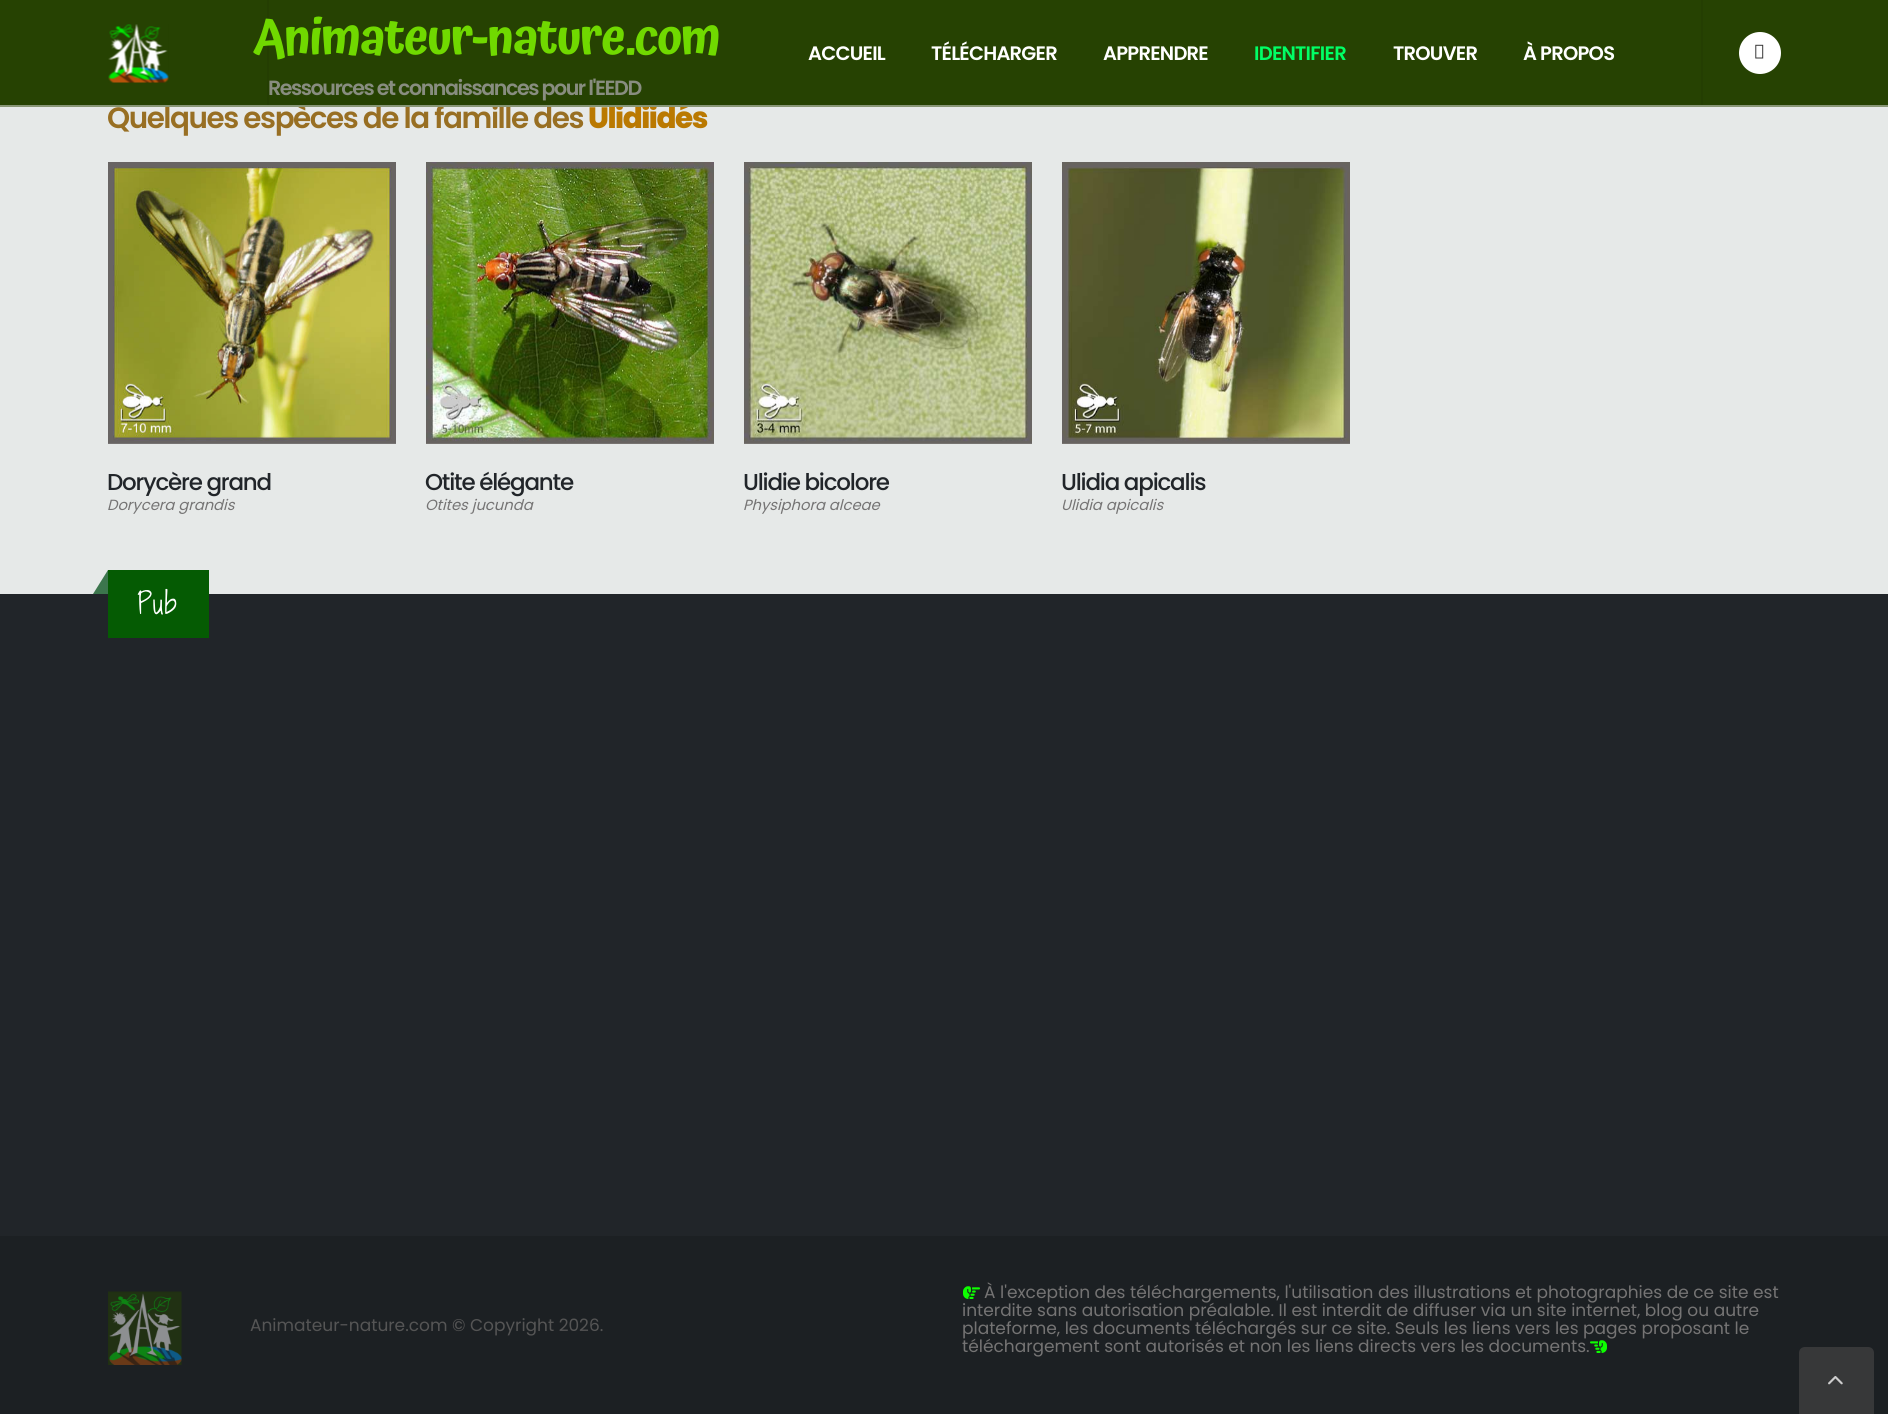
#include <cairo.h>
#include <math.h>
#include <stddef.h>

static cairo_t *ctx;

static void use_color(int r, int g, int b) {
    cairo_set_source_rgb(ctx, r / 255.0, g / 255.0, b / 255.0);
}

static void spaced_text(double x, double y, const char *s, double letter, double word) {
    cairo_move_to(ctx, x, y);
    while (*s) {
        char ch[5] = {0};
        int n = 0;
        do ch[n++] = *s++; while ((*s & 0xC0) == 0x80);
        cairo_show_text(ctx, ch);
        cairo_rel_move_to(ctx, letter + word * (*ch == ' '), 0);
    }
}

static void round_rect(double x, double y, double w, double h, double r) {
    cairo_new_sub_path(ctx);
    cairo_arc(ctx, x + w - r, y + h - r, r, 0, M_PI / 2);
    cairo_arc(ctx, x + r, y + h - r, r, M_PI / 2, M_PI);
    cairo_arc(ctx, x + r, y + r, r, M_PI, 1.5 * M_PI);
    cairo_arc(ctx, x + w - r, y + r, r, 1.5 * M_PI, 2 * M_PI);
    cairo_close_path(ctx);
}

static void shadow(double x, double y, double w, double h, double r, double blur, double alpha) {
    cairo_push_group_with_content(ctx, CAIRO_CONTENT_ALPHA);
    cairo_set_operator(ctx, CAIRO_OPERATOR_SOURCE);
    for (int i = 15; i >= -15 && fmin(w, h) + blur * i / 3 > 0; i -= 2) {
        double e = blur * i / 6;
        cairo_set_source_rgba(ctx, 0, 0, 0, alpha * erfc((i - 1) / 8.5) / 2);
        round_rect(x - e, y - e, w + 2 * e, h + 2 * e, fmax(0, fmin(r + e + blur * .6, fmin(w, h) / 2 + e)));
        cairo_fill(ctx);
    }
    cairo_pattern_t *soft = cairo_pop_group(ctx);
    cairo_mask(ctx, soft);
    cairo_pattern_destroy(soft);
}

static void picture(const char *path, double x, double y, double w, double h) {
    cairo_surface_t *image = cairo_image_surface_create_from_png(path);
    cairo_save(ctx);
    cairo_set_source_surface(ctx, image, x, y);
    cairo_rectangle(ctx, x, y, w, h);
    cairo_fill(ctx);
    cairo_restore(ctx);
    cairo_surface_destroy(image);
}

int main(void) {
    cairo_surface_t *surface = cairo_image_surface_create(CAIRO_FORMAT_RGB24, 1888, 1414);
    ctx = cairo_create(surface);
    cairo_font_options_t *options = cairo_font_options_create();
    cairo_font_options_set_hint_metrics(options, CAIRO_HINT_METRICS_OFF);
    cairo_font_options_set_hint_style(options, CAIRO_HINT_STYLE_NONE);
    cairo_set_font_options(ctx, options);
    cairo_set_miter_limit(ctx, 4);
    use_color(230, 233, 232);
    cairo_paint(ctx);
    use_color(234, 234, 234);
    shadow(0, 0, 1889, 107, 0, 2, 0.5);
    cairo_select_font_face(ctx, "Poppins SemiBold", CAIRO_FONT_SLANT_NORMAL, CAIRO_FONT_WEIGHT_NORMAL);
    cairo_set_font_size(ctx, 29.4);
    use_color(152, 111, 35);
    spaced_text(107, 128, "Quelques espèces de la famille des", -1.45, 0);
    cairo_select_font_face(ctx, "Poppins ExtraBold", CAIRO_FONT_SLANT_NORMAL, CAIRO_FONT_WEIGHT_NORMAL);
    use_color(186, 121, 1);
    spaced_text(588, 128, "Ulidiidés", -1.45, 0);
    use_color(38, 66, 2);
    cairo_rectangle(ctx, 0, 0, 1888, 105);
    cairo_fill(ctx);
    use_color(136, 150, 118);
    cairo_rectangle(ctx, 0, 105, 1888, 2);
    cairo_fill(ctx);
    use_color(36, 62, 2);
    cairo_rectangle(ctx, 267, 0, 2, 105);
    cairo_fill(ctx);
    picture("img1.png", 108, 24, 61, 59);
    cairo_select_font_face(ctx, "Atma SemiBold", CAIRO_FONT_SLANT_NORMAL, CAIRO_FONT_WEIGHT_NORMAL);
    cairo_set_font_size(ctx, 50);
    use_color(112, 217, 0);
    spaced_text(253, 54, "Animateur-nature.com", -1.45, 0);
    cairo_select_font_face(ctx, "Poppins SemiBold", CAIRO_FONT_SLANT_NORMAL, CAIRO_FONT_WEIGHT_NORMAL);
    cairo_set_font_size(ctx, 20.6);
    use_color(136, 141, 128);
    spaced_text(268, 95, "Ressources et connaissances pour l'EEDD", -1.45, 0);
    cairo_set_font_size(ctx, 19.5);
    use_color(255, 255, 255);
    spaced_text(808, 60, "ACCUEIL", -0.75, 0);
    spaced_text(931, 60, "TÉLÉCHARGER", -0.75, 0);
    spaced_text(1103, 60, "APPRENDRE", -0.75, 0);
    use_color(0, 255, 102);
    spaced_text(1254, 60, "IDENTIFIER", -0.75, 0);
    use_color(255, 255, 255);
    spaced_text(1393, 60, "TROUVER", -0.75, 0);
    spaced_text(1523, 60, "À PROPOS", -0.75, 0);
    use_color(36, 62, 2);
    cairo_rectangle(ctx, 1701, 0, 2, 105);
    cairo_fill(ctx);
    use_color(255, 255, 255);
    cairo_arc(ctx, 1760, 53, 21, 0, 2 * M_PI);
    cairo_fill(ctx);
    picture("img2.png", 1755, 44, 9, 15);
    picture("img3.png", 108, 162, 288, 282);
    cairo_select_font_face(ctx, "Poppins Medium", CAIRO_FONT_SLANT_NORMAL, CAIRO_FONT_WEIGHT_NORMAL);
    cairo_set_font_size(ctx, 23);
    use_color(33, 37, 41);
    spaced_text(107, 490, "Dorycère grand", -1.2, 0);
    cairo_select_font_face(ctx, "Poppins", CAIRO_FONT_SLANT_ITALIC, CAIRO_FONT_WEIGHT_NORMAL);
    cairo_set_font_size(ctx, 14.75);
    use_color(117, 116, 116);
    cairo_move_to(ctx, 107, 510);
    cairo_show_text(ctx, "Dorycera grandis");
    picture("img4.png", 426, 162, 288, 282);
    cairo_select_font_face(ctx, "Poppins Medium", CAIRO_FONT_SLANT_NORMAL, CAIRO_FONT_WEIGHT_NORMAL);
    cairo_set_font_size(ctx, 23);
    use_color(33, 37, 41);
    spaced_text(425, 490, "Otite élégante", -1.2, 0);
    cairo_select_font_face(ctx, "Poppins", CAIRO_FONT_SLANT_ITALIC, CAIRO_FONT_WEIGHT_NORMAL);
    cairo_set_font_size(ctx, 14.75);
    use_color(117, 116, 116);
    cairo_move_to(ctx, 425, 510);
    cairo_show_text(ctx, "Otites jucunda");
    picture("img5.png", 744, 162, 288, 282);
    cairo_select_font_face(ctx, "Poppins Medium", CAIRO_FONT_SLANT_NORMAL, CAIRO_FONT_WEIGHT_NORMAL);
    cairo_set_font_size(ctx, 23);
    use_color(33, 37, 41);
    spaced_text(743, 490, "Ulidie bicolore", -1.2, 0);
    cairo_select_font_face(ctx, "Poppins", CAIRO_FONT_SLANT_ITALIC, CAIRO_FONT_WEIGHT_NORMAL);
    cairo_set_font_size(ctx, 14.75);
    use_color(117, 116, 116);
    cairo_move_to(ctx, 743, 510);
    cairo_show_text(ctx, "Physiphora alceae");
    picture("img6.png", 1062, 162, 288, 282);
    cairo_select_font_face(ctx, "Poppins Medium", CAIRO_FONT_SLANT_NORMAL, CAIRO_FONT_WEIGHT_NORMAL);
    cairo_set_font_size(ctx, 23);
    use_color(33, 37, 41);
    spaced_text(1061, 490, "Ulidia apicalis", -1.2, 0);
    cairo_select_font_face(ctx, "Poppins", CAIRO_FONT_SLANT_ITALIC, CAIRO_FONT_WEIGHT_NORMAL);
    cairo_set_font_size(ctx, 14.75);
    use_color(117, 116, 116);
    cairo_move_to(ctx, 1061, 510);
    cairo_show_text(ctx, "Ulidia apicalis");
    use_color(33, 37, 41);
    cairo_rectangle(ctx, 0, 594, 1888, 642);
    cairo_fill(ctx);
    use_color(5, 91, 3);
    cairo_rectangle(ctx, 108, 570, 101, 68);
    cairo_fill(ctx);
    use_color(60, 118, 77);
    cairo_new_path(ctx);
    cairo_move_to(ctx, 108, 570);
    cairo_line_to(ctx, 108, 594);
    cairo_line_to(ctx, 93, 594);
    cairo_close_path(ctx);
    cairo_fill(ctx);
    cairo_select_font_face(ctx, "Shadows Into Light Light", CAIRO_FONT_SLANT_NORMAL, CAIRO_FONT_WEIGHT_NORMAL);
    cairo_set_font_size(ctx, 30);
    use_color(255, 255, 255);
    cairo_move_to(ctx, 137, 614);
    cairo_show_text(ctx, "Pub");
    use_color(28, 32, 35);
    cairo_rectangle(ctx, 0, 1236, 1888, 178);
    cairo_fill(ctx);
    picture("img7.png", 108, 1291, 74, 74);
    cairo_select_font_face(ctx, "Poppins", CAIRO_FONT_SLANT_NORMAL, CAIRO_FONT_WEIGHT_NORMAL);
    cairo_set_font_size(ctx, 17);
    use_color(85, 85, 85);
    cairo_move_to(ctx, 250, 1331);
    cairo_show_text(ctx, "Animateur-nature.com © Copyright 2026.");
    picture("img8.png", 963, 1286, 17, 13);
    use_color(117, 116, 116);
    cairo_move_to(ctx, 984, 1298);
    cairo_show_text(ctx, "À l'exception des téléchargements, l'utilisation des illustrations et photographies de ce site est");
    cairo_move_to(ctx, 962, 1316);
    cairo_show_text(ctx, "interdite sans autorisation préalable. Il est interdit de diffuser via un site internet, blog ou autre");
    cairo_move_to(ctx, 962, 1334);
    cairo_show_text(ctx, "plateforme, les documents téléchargés sur ce site. Seuls les liens vers les pages proposant le");
    cairo_move_to(ctx, 962, 1352);
    cairo_show_text(ctx, "téléchargement sont autorisés et non les liens directs vers les documents.");
    picture("img9.png", 1590, 1340, 17, 13);
    use_color(55, 56, 57);
    cairo_new_path(ctx);
    cairo_move_to(ctx, 1805, 1347);
    cairo_line_to(ctx, 1868, 1347);
    cairo_curve_to(ctx, 1871.5, 1347, 1874, 1349.5, 1874, 1353);
    cairo_line_to(ctx, 1874, 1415);
    cairo_line_to(ctx, 1799, 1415);
    cairo_line_to(ctx, 1799, 1353);
    cairo_curve_to(ctx, 1799, 1349.5, 1801.5, 1347, 1805, 1347);
    cairo_close_path(ctx);
    cairo_fill(ctx);
    picture("img10.png", 1828, 1376, 15, 9);
    cairo_surface_write_to_png(surface, "result.png");
    cairo_font_options_destroy(options);
    cairo_destroy(ctx);
    cairo_surface_destroy(surface);
    return 0;
}
